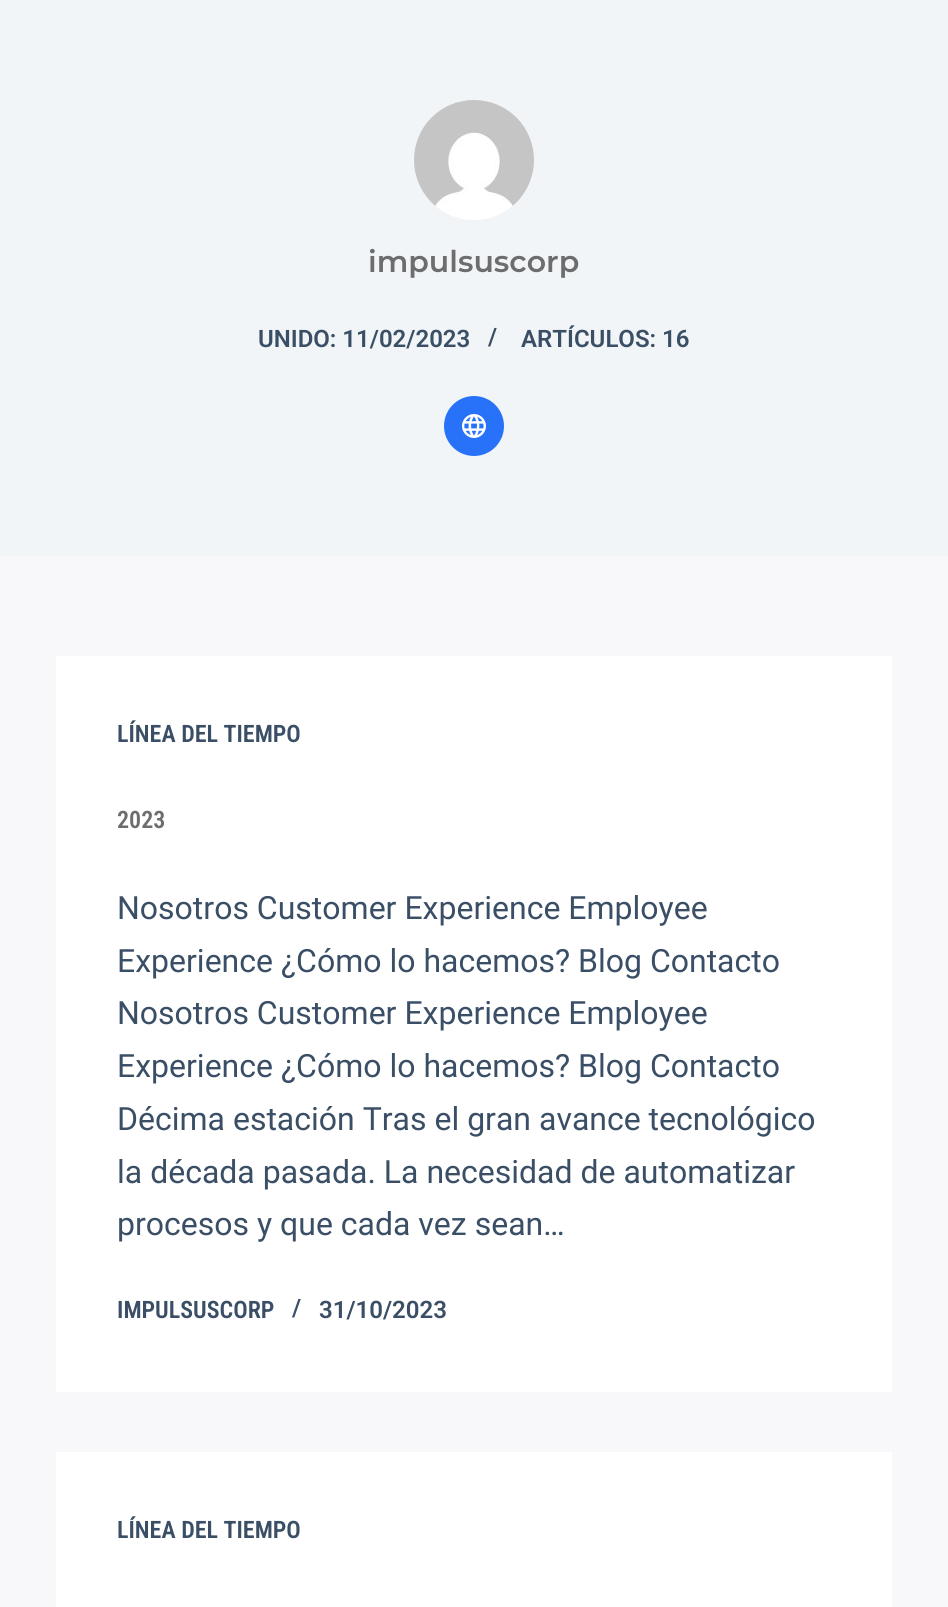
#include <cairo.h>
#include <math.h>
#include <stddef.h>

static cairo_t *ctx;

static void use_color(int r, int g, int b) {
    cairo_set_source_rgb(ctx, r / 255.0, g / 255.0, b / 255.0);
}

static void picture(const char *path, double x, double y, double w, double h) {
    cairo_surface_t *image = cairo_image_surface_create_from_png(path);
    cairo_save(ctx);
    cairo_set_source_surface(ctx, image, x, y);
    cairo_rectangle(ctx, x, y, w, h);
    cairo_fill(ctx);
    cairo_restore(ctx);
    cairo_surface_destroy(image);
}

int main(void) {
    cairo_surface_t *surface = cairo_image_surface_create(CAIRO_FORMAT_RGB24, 948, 1607);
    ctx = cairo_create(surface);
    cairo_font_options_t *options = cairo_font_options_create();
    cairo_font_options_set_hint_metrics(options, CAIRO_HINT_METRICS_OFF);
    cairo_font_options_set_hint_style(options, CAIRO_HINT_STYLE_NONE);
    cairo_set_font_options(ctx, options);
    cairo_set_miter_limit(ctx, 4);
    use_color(248, 247, 250);
    cairo_paint(ctx);
    use_color(242, 245, 247);
    cairo_rectangle(ctx, 0, 0, 948, 556);
    cairo_fill(ctx);
    picture("img1.png", 414, 100, 120, 120);
    cairo_select_font_face(ctx, "Montserrat Thin", CAIRO_FONT_SLANT_NORMAL, CAIRO_FONT_WEIGHT_NORMAL);
    cairo_set_font_size(ctx, 30);
    use_color(109, 109, 109);
    cairo_move_to(ctx, 368, 272);
    cairo_show_text(ctx, "impulsuscorp");
    cairo_select_font_face(ctx, "Roboto SemiBold", CAIRO_FONT_SLANT_NORMAL, CAIRO_FONT_WEIGHT_NORMAL);
    cairo_set_font_size(ctx, 24);
    use_color(58, 79, 102);
    cairo_move_to(ctx, 258, 347);
    cairo_show_text(ctx, "UNIDO: 11/02/2023");
    cairo_move_to(ctx, 488, 345);
    cairo_show_text(ctx, "/");
    cairo_move_to(ctx, 521, 347);
    cairo_show_text(ctx, "ARTÍCULOS: 16");
    use_color(40, 114, 250);
    cairo_new_path(ctx);
    cairo_arc(ctx, 474, 426, 30, 0, 2 * M_PI);
    cairo_fill(ctx);
    picture("img2.png", 462, 414, 24, 24);
    use_color(255, 255, 255);
    cairo_rectangle(ctx, 56, 656, 836, 736);
    cairo_fill(ctx);
    cairo_select_font_face(ctx, "Roboto Condensed SemiBold", CAIRO_FONT_SLANT_NORMAL, CAIRO_FONT_WEIGHT_NORMAL);
    use_color(58, 79, 102);
    cairo_move_to(ctx, 117, 742);
    cairo_show_text(ctx, "LÍNEA DEL TIEMPO");
    use_color(109, 109, 109);
    cairo_move_to(ctx, 117, 828);
    cairo_show_text(ctx, "2023");
    cairo_select_font_face(ctx, "Roboto", CAIRO_FONT_SLANT_NORMAL, CAIRO_FONT_WEIGHT_NORMAL);
    cairo_set_font_size(ctx, 32);
    use_color(58, 79, 102);
    cairo_move_to(ctx, 117, 919);
    cairo_show_text(ctx, "Nosotros Customer Experience Employee");
    cairo_move_to(ctx, 117, 972);
    cairo_show_text(ctx, "Experience ¿Cómo lo hacemos? Blog Contacto");
    cairo_move_to(ctx, 117, 1024);
    cairo_show_text(ctx, "Nosotros Customer Experience Employee");
    cairo_move_to(ctx, 117, 1077);
    cairo_show_text(ctx, "Experience ¿Cómo lo hacemos? Blog Contacto");
    cairo_move_to(ctx, 117, 1130);
    cairo_show_text(ctx, "Décima estación Tras el gran avance tecnológico");
    cairo_move_to(ctx, 117, 1183);
    cairo_show_text(ctx, "la década pasada. La necesidad de automatizar");
    cairo_move_to(ctx, 117, 1235);
    cairo_show_text(ctx, "procesos y que cada vez sean…");
    cairo_select_font_face(ctx, "Roboto Condensed SemiBold", CAIRO_FONT_SLANT_NORMAL, CAIRO_FONT_WEIGHT_NORMAL);
    cairo_set_font_size(ctx, 24);
    cairo_move_to(ctx, 117, 1318);
    cairo_show_text(ctx, "IMPULSUSCORP");
    cairo_select_font_face(ctx, "Roboto SemiBold", CAIRO_FONT_SLANT_NORMAL, CAIRO_FONT_WEIGHT_NORMAL);
    cairo_move_to(ctx, 292, 1316);
    cairo_show_text(ctx, "/");
    cairo_move_to(ctx, 319, 1318);
    cairo_show_text(ctx, "31/10/2023");
    use_color(255, 255, 255);
    cairo_rectangle(ctx, 56, 1452, 836, 155);
    cairo_fill(ctx);
    cairo_select_font_face(ctx, "Roboto Condensed SemiBold", CAIRO_FONT_SLANT_NORMAL, CAIRO_FONT_WEIGHT_NORMAL);
    use_color(58, 79, 102);
    cairo_move_to(ctx, 117, 1538);
    cairo_show_text(ctx, "LÍNEA DEL TIEMPO");
    cairo_surface_write_to_png(surface, "result.png");
    cairo_font_options_destroy(options);
    cairo_destroy(ctx);
    cairo_surface_destroy(surface);
    return 0;
}
